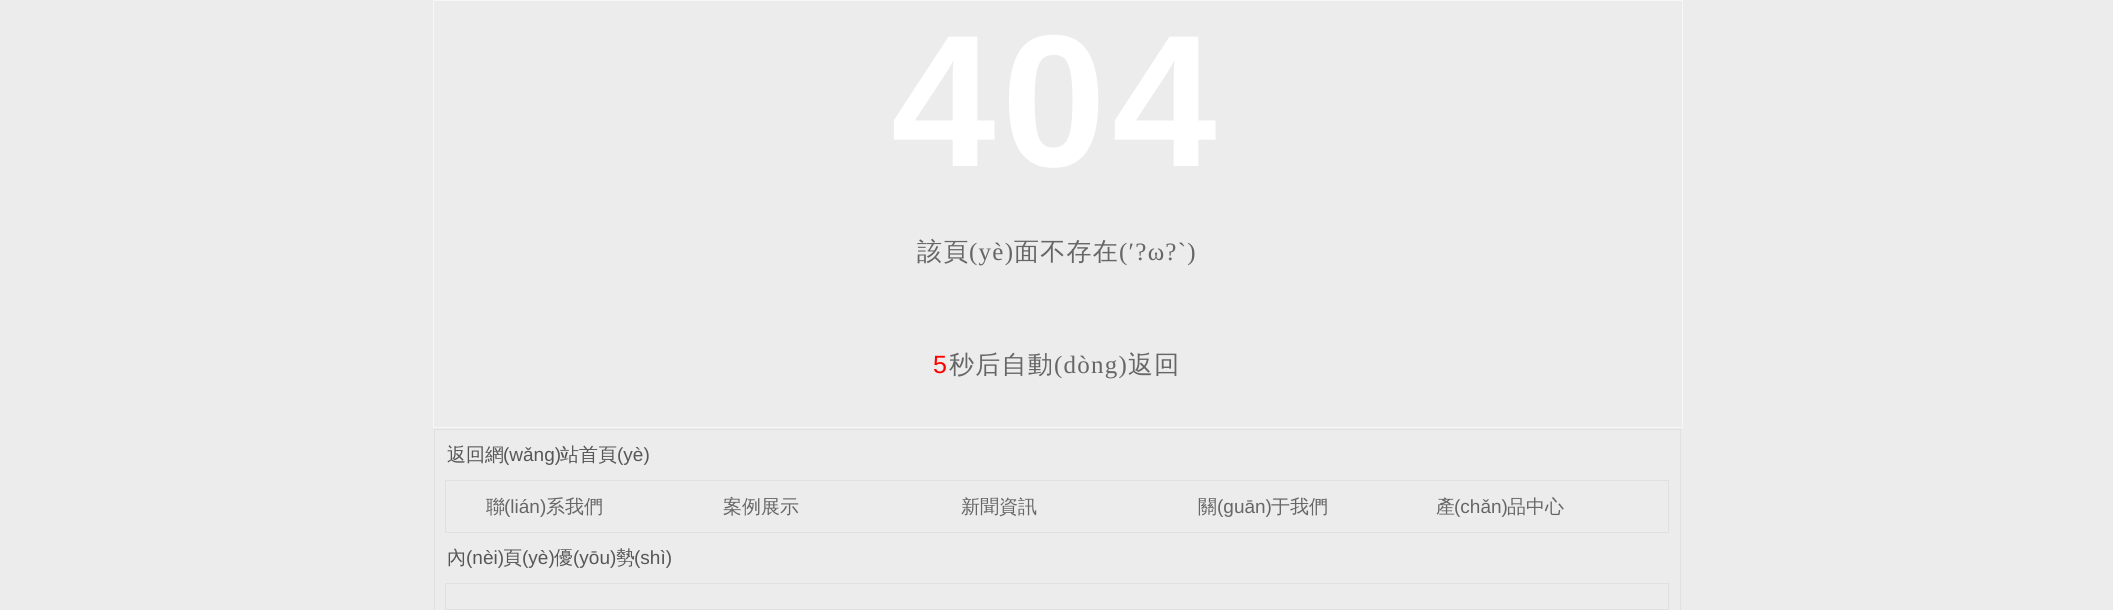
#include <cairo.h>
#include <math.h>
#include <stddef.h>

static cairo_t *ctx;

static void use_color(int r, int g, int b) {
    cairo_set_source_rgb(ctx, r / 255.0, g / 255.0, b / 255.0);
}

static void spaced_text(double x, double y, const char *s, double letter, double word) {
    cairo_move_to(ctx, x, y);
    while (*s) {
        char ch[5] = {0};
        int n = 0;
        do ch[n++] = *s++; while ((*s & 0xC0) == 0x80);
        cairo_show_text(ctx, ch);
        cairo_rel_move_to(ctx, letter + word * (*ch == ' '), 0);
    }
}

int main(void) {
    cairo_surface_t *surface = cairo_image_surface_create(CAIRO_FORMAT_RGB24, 2113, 610);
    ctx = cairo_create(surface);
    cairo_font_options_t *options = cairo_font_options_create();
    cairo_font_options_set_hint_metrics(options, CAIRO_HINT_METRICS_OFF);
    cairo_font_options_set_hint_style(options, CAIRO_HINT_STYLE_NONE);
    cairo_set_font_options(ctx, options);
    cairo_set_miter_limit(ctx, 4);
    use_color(236, 236, 236);
    cairo_paint(ctx);
    cairo_rectangle(ctx, 433.5, 0.5, 1249, 427);
    use_color(247, 247, 247);
    cairo_set_line_width(ctx, 1);
    cairo_stroke(ctx);
    cairo_select_font_face(ctx, "Liberation Sans", CAIRO_FONT_SLANT_NORMAL, CAIRO_FONT_WEIGHT_BOLD);
    cairo_set_font_size(ctx, 188);
    use_color(255, 255, 255);
    spaced_text(891, 166, "404", 6, 0);
    cairo_select_font_face(ctx, "WenQuanYi Zen Hei Medium", CAIRO_FONT_SLANT_NORMAL, CAIRO_FONT_WEIGHT_NORMAL);
    cairo_set_font_size(ctx, 25);
    use_color(102, 102, 102);
    spaced_text(917, 260, "該頁", 1.25, 0);
    cairo_select_font_face(ctx, "Liberation Serif", CAIRO_FONT_SLANT_NORMAL, CAIRO_FONT_WEIGHT_NORMAL);
    spaced_text(969, 260, "(yè)", 1.25, 0);
    cairo_select_font_face(ctx, "WenQuanYi Zen Hei Medium", CAIRO_FONT_SLANT_NORMAL, CAIRO_FONT_WEIGHT_NORMAL);
    spaced_text(1014, 260, "面不存在", 1.25, 0);
    cairo_select_font_face(ctx, "Liberation Serif", CAIRO_FONT_SLANT_NORMAL, CAIRO_FONT_WEIGHT_NORMAL);
    spaced_text(1119, 260, "(′?ω?`)", 1.25, 0);
    cairo_select_font_face(ctx, "Liberation Sans", CAIRO_FONT_SLANT_NORMAL, CAIRO_FONT_WEIGHT_NORMAL);
    use_color(255, 0, 0);
    spaced_text(933, 373, "5", 1.25, 0);
    cairo_select_font_face(ctx, "WenQuanYi Zen Hei Medium", CAIRO_FONT_SLANT_NORMAL, CAIRO_FONT_WEIGHT_NORMAL);
    use_color(102, 102, 102);
    spaced_text(949, 373, "秒后自動", 1.25, 0);
    cairo_select_font_face(ctx, "Liberation Serif", CAIRO_FONT_SLANT_NORMAL, CAIRO_FONT_WEIGHT_NORMAL);
    spaced_text(1054, 373, "(dòng)", 1.25, 0);
    cairo_select_font_face(ctx, "WenQuanYi Zen Hei Medium", CAIRO_FONT_SLANT_NORMAL, CAIRO_FONT_WEIGHT_NORMAL);
    spaced_text(1128, 373, "返回", 1.25, 0);
    cairo_rectangle(ctx, 434.5, 429.5, 1246, 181);
    use_color(224, 224, 224);
    cairo_stroke(ctx);
    cairo_set_font_size(ctx, 19);
    use_color(86, 86, 86);
    cairo_move_to(ctx, 447, 461);
    cairo_show_text(ctx, "返回網");
    cairo_select_font_face(ctx, "Liberation Sans", CAIRO_FONT_SLANT_NORMAL, CAIRO_FONT_WEIGHT_NORMAL);
    cairo_move_to(ctx, 503, 461);
    cairo_show_text(ctx, "(wǎng)");
    cairo_select_font_face(ctx, "WenQuanYi Zen Hei Medium", CAIRO_FONT_SLANT_NORMAL, CAIRO_FONT_WEIGHT_NORMAL);
    cairo_move_to(ctx, 560, 461);
    cairo_show_text(ctx, "站首頁");
    cairo_select_font_face(ctx, "Liberation Sans", CAIRO_FONT_SLANT_NORMAL, CAIRO_FONT_WEIGHT_NORMAL);
    cairo_move_to(ctx, 617, 461);
    cairo_show_text(ctx, "(yè)");
    cairo_rectangle(ctx, 445.5, 480.5, 1223, 52);
    use_color(224, 224, 224);
    cairo_stroke(ctx);
    cairo_select_font_face(ctx, "WenQuanYi Zen Hei Medium", CAIRO_FONT_SLANT_NORMAL, CAIRO_FONT_WEIGHT_NORMAL);
    use_color(102, 102, 102);
    cairo_move_to(ctx, 486, 513);
    cairo_show_text(ctx, "聯");
    cairo_select_font_face(ctx, "Liberation Sans", CAIRO_FONT_SLANT_NORMAL, CAIRO_FONT_WEIGHT_NORMAL);
    cairo_move_to(ctx, 504, 513);
    cairo_show_text(ctx, "(lián)");
    cairo_select_font_face(ctx, "WenQuanYi Zen Hei Medium", CAIRO_FONT_SLANT_NORMAL, CAIRO_FONT_WEIGHT_NORMAL);
    cairo_move_to(ctx, 546, 513);
    cairo_show_text(ctx, "系我們");
    cairo_move_to(ctx, 723, 513);
    cairo_show_text(ctx, "案例展示");
    cairo_move_to(ctx, 961, 513);
    cairo_show_text(ctx, "新聞資訊");
    cairo_move_to(ctx, 1198, 513);
    cairo_show_text(ctx, "關");
    cairo_select_font_face(ctx, "Liberation Sans", CAIRO_FONT_SLANT_NORMAL, CAIRO_FONT_WEIGHT_NORMAL);
    cairo_move_to(ctx, 1217, 513);
    cairo_show_text(ctx, "(guān)");
    cairo_select_font_face(ctx, "WenQuanYi Zen Hei Medium", CAIRO_FONT_SLANT_NORMAL, CAIRO_FONT_WEIGHT_NORMAL);
    cairo_move_to(ctx, 1271, 513);
    cairo_show_text(ctx, "于我們");
    cairo_move_to(ctx, 1436, 513);
    cairo_show_text(ctx, "產");
    cairo_select_font_face(ctx, "Liberation Sans", CAIRO_FONT_SLANT_NORMAL, CAIRO_FONT_WEIGHT_NORMAL);
    cairo_move_to(ctx, 1454, 513);
    cairo_show_text(ctx, "(chǎn)");
    cairo_select_font_face(ctx, "WenQuanYi Zen Hei Medium", CAIRO_FONT_SLANT_NORMAL, CAIRO_FONT_WEIGHT_NORMAL);
    cairo_move_to(ctx, 1507, 513);
    cairo_show_text(ctx, "品中心");
    use_color(86, 86, 86);
    cairo_move_to(ctx, 447, 564);
    cairo_show_text(ctx, "內");
    cairo_select_font_face(ctx, "Liberation Sans", CAIRO_FONT_SLANT_NORMAL, CAIRO_FONT_WEIGHT_NORMAL);
    cairo_move_to(ctx, 466, 564);
    cairo_show_text(ctx, "(nèi)");
    cairo_select_font_face(ctx, "WenQuanYi Zen Hei Medium", CAIRO_FONT_SLANT_NORMAL, CAIRO_FONT_WEIGHT_NORMAL);
    cairo_move_to(ctx, 503, 564);
    cairo_show_text(ctx, "頁");
    cairo_select_font_face(ctx, "Liberation Sans", CAIRO_FONT_SLANT_NORMAL, CAIRO_FONT_WEIGHT_NORMAL);
    cairo_move_to(ctx, 522, 564);
    cairo_show_text(ctx, "(yè)");
    cairo_select_font_face(ctx, "WenQuanYi Zen Hei Medium", CAIRO_FONT_SLANT_NORMAL, CAIRO_FONT_WEIGHT_NORMAL);
    cairo_move_to(ctx, 554, 564);
    cairo_show_text(ctx, "優");
    cairo_select_font_face(ctx, "Liberation Sans", CAIRO_FONT_SLANT_NORMAL, CAIRO_FONT_WEIGHT_NORMAL);
    cairo_move_to(ctx, 573, 564);
    cairo_show_text(ctx, "(yōu)");
    cairo_select_font_face(ctx, "WenQuanYi Zen Hei Medium", CAIRO_FONT_SLANT_NORMAL, CAIRO_FONT_WEIGHT_NORMAL);
    cairo_move_to(ctx, 616, 564);
    cairo_show_text(ctx, "勢");
    cairo_select_font_face(ctx, "Liberation Sans", CAIRO_FONT_SLANT_NORMAL, CAIRO_FONT_WEIGHT_NORMAL);
    cairo_move_to(ctx, 634, 564);
    cairo_show_text(ctx, "(shì)");
    cairo_rectangle(ctx, 445.5, 583.5, 1223, 26);
    use_color(224, 224, 224);
    cairo_stroke(ctx);
    cairo_surface_write_to_png(surface, "result.png");
    cairo_font_options_destroy(options);
    cairo_destroy(ctx);
    cairo_surface_destroy(surface);
    return 0;
}
